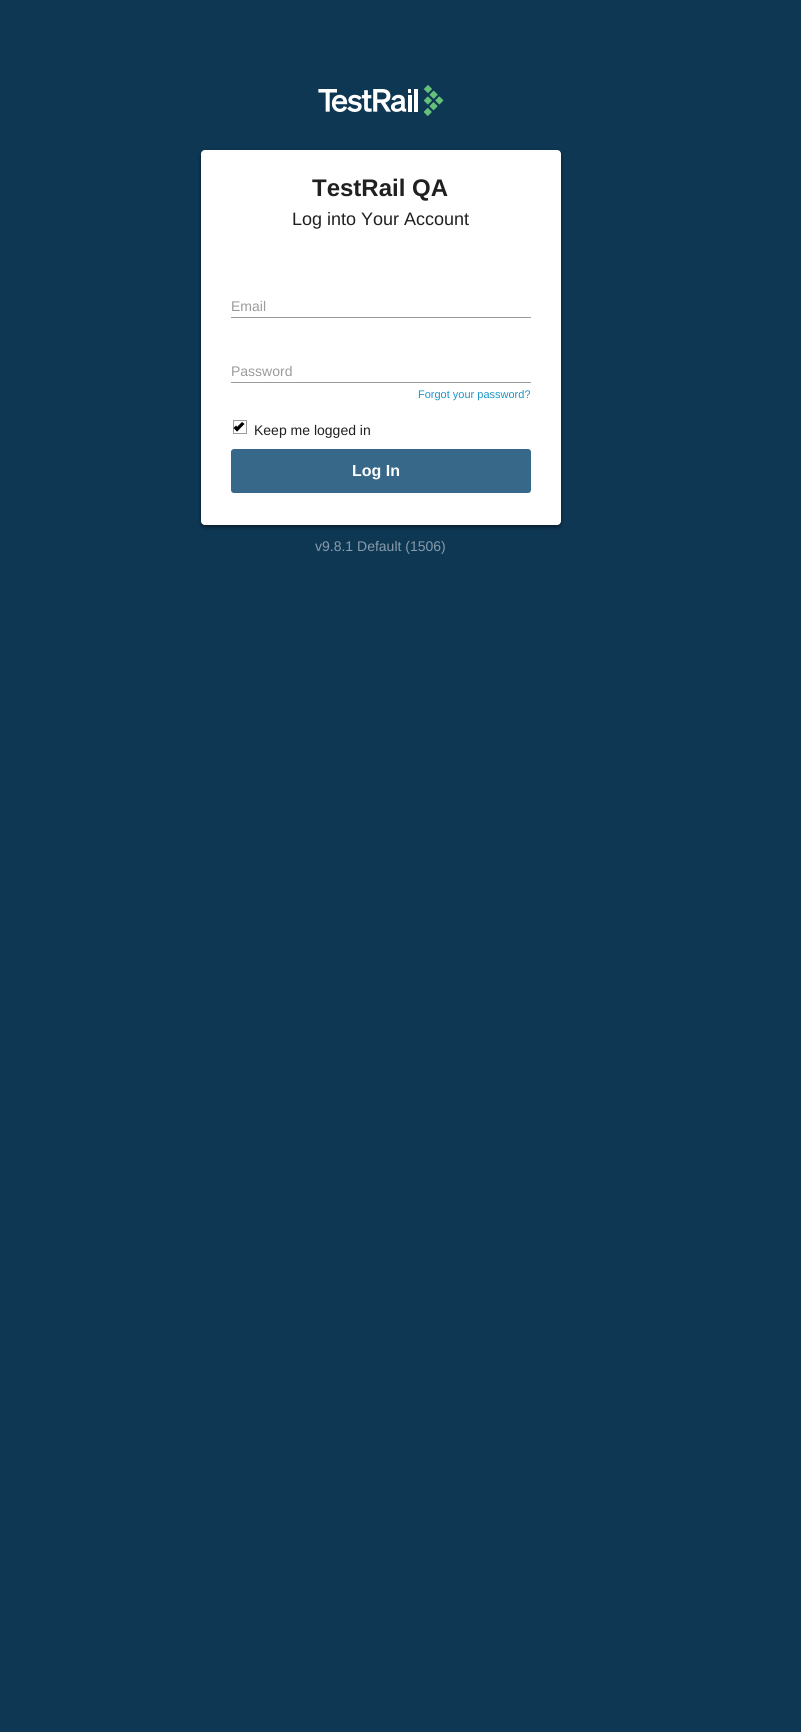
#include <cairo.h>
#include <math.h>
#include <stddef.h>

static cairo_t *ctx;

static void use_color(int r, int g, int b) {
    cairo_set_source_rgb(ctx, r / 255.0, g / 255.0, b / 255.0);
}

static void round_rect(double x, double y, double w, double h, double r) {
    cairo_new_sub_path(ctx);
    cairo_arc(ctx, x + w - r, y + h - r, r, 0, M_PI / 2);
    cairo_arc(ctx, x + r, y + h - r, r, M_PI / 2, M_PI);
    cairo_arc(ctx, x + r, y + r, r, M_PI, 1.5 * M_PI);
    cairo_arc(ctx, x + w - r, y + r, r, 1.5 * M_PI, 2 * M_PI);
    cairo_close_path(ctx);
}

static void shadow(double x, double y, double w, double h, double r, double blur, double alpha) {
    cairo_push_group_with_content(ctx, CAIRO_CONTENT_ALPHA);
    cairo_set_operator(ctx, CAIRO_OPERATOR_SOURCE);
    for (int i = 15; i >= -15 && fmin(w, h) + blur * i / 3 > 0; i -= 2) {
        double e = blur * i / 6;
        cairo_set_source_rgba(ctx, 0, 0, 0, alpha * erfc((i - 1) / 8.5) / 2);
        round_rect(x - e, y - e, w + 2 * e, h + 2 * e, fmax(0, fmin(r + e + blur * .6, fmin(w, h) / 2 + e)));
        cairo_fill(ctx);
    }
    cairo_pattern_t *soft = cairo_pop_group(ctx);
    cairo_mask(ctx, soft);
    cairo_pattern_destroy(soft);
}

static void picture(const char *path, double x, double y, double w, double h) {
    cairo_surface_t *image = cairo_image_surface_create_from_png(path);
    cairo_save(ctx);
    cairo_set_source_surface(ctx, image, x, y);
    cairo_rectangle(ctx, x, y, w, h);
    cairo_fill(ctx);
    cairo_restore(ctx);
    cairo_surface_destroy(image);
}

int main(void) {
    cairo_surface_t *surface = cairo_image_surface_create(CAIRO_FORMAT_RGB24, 801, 1732);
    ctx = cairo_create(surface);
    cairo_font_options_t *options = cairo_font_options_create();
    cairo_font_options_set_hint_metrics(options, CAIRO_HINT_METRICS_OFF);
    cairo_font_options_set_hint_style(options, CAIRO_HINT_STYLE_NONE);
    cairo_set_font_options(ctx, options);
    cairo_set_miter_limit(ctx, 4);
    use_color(14, 55, 84);
    cairo_paint(ctx);
    picture("img1.png", 318, 85, 126, 31);
    use_color(0, 0, 0);
    shadow(201, 152, 360, 375, 4, 2, 0.5);
    use_color(255, 255, 255);
    round_rect(201, 150, 360, 375, 4);
    cairo_fill(ctx);
    cairo_select_font_face(ctx, "Liberation Sans", CAIRO_FONT_SLANT_NORMAL, CAIRO_FONT_WEIGHT_BOLD);
    cairo_set_font_size(ctx, 24);
    use_color(32, 32, 32);
    cairo_move_to(ctx, 312, 196);
    cairo_show_text(ctx, "TestRail QA");
    cairo_select_font_face(ctx, "Liberation Sans", CAIRO_FONT_SLANT_NORMAL, CAIRO_FONT_WEIGHT_NORMAL);
    cairo_set_font_size(ctx, 18);
    cairo_move_to(ctx, 292, 225);
    cairo_show_text(ctx, "Log into Your Account");
    cairo_set_font_size(ctx, 14);
    use_color(155, 155, 155);
    cairo_move_to(ctx, 231, 311);
    cairo_show_text(ctx, "Email");
    cairo_rectangle(ctx, 231, 317, 300, 1);
    cairo_fill(ctx);
    cairo_move_to(ctx, 231, 376);
    cairo_show_text(ctx, "Password");
    cairo_rectangle(ctx, 231, 382, 300, 1);
    cairo_fill(ctx);
    cairo_set_font_size(ctx, 11);
    use_color(28, 148, 196);
    cairo_move_to(ctx, 418, 398);
    cairo_show_text(ctx, "Forgot your password?");
    cairo_rectangle(ctx, 233.5, 420.5, 13, 13);
    use_color(155, 155, 155);
    cairo_set_line_width(ctx, 1);
    cairo_stroke(ctx);
    use_color(0, 0, 0);
    cairo_new_path(ctx);
    cairo_move_to(ctx, 242, 422);
    cairo_line_to(ctx, 244.5, 424);
    cairo_line_to(ctx, 237, 431.5);
    cairo_line_to(ctx, 235, 429);
    cairo_close_path(ctx);
    cairo_fill(ctx);
    cairo_new_path(ctx);
    cairo_move_to(ctx, 236, 425.5);
    cairo_line_to(ctx, 239.5, 429);
    cairo_line_to(ctx, 237, 431.5);
    cairo_line_to(ctx, 233.5, 428);
    cairo_close_path(ctx);
    cairo_fill(ctx);
    cairo_set_font_size(ctx, 14);
    use_color(32, 32, 32);
    cairo_move_to(ctx, 254, 435);
    cairo_show_text(ctx, "Keep me logged in");
    use_color(55, 103, 137);
    round_rect(231, 449, 300, 44, 3);
    cairo_fill(ctx);
    cairo_select_font_face(ctx, "Liberation Sans", CAIRO_FONT_SLANT_NORMAL, CAIRO_FONT_WEIGHT_BOLD);
    cairo_set_font_size(ctx, 16);
    use_color(255, 255, 255);
    cairo_move_to(ctx, 352, 476);
    cairo_show_text(ctx, "Log In");
    cairo_select_font_face(ctx, "Liberation Sans", CAIRO_FONT_SLANT_NORMAL, CAIRO_FONT_WEIGHT_NORMAL);
    cairo_set_font_size(ctx, 14);
    use_color(135, 155, 170);
    cairo_move_to(ctx, 315, 551);
    cairo_show_text(ctx, "v9.8.1 Default (1506)");
    cairo_surface_write_to_png(surface, "result.png");
    cairo_font_options_destroy(options);
    cairo_destroy(ctx);
    cairo_surface_destroy(surface);
    return 0;
}
